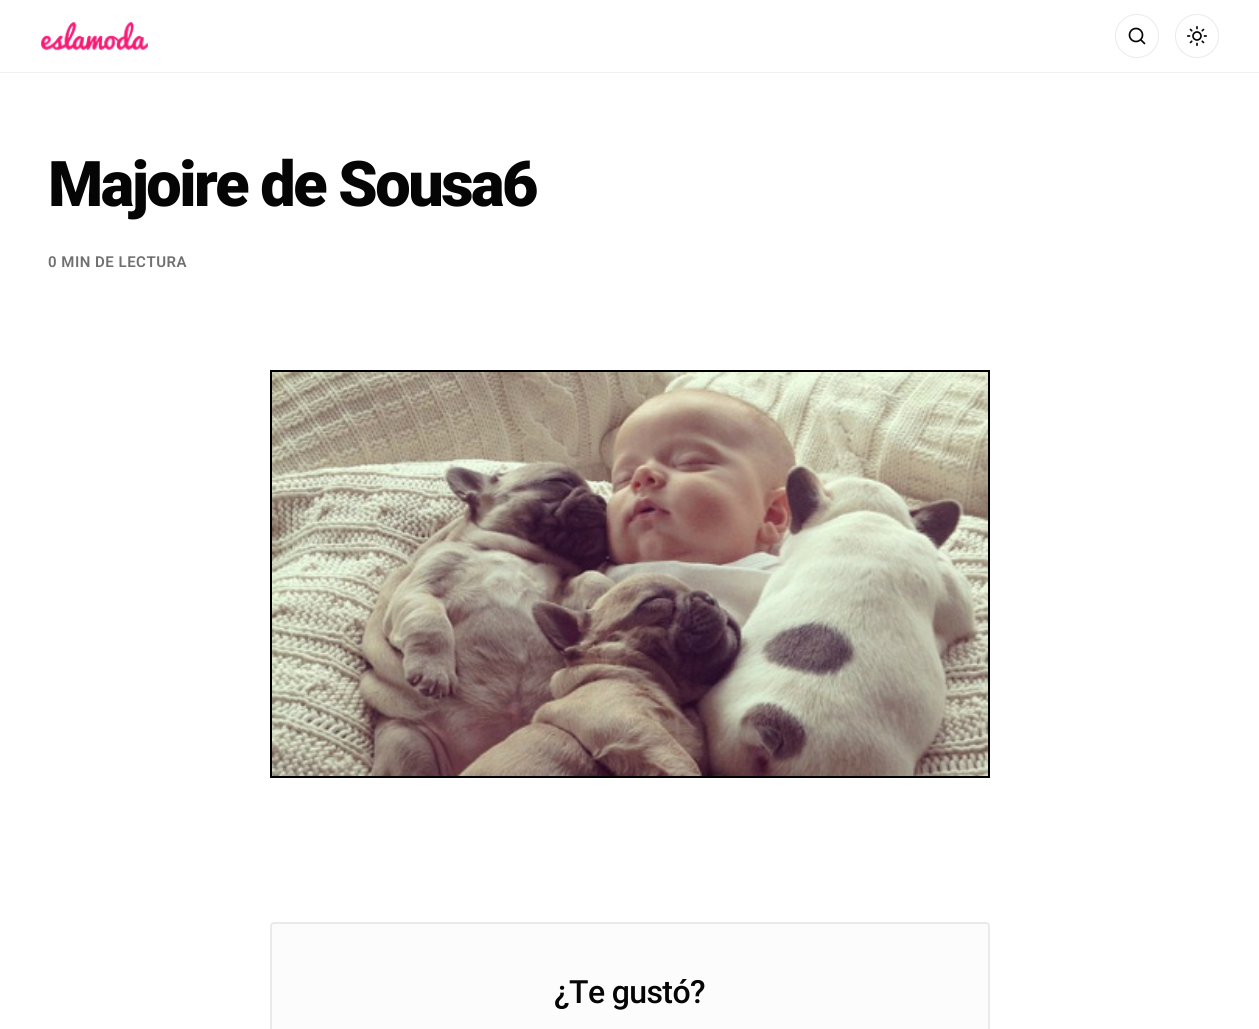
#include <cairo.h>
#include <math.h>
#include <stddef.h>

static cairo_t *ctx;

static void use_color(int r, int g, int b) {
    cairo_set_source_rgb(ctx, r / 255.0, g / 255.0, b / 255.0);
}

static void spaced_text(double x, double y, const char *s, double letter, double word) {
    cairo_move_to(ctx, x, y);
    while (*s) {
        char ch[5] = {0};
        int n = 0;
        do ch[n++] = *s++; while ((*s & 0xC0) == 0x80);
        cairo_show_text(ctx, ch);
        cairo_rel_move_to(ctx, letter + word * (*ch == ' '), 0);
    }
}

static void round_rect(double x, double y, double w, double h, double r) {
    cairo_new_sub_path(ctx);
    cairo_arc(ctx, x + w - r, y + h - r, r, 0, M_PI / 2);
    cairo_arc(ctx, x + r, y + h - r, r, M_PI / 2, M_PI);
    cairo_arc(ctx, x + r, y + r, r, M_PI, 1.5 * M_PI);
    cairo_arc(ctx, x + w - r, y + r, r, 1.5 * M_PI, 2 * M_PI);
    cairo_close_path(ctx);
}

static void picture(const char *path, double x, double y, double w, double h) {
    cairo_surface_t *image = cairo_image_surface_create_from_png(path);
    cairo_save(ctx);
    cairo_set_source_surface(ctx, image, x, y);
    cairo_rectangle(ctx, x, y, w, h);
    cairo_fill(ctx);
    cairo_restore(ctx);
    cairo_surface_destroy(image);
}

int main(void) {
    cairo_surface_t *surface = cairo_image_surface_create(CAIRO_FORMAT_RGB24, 1259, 1029);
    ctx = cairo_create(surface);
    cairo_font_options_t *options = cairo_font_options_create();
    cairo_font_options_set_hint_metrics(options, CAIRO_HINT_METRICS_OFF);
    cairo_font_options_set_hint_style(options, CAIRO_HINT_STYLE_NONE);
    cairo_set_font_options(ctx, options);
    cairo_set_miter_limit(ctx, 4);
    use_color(255, 255, 255);
    cairo_paint(ctx);
    use_color(240, 240, 240);
    cairo_rectangle(ctx, 0, 72, 1259, 1);
    cairo_fill(ctx);
    picture("img1.png", 41, 22, 107, 29);
    cairo_arc(ctx, 1137, 36, 21.5, 0, 2 * M_PI);
    use_color(234, 234, 234);
    cairo_set_line_width(ctx, 1);
    cairo_stroke(ctx);
    cairo_arc(ctx, 1136, 35, 6.5, 0, 2 * M_PI);
    use_color(5, 5, 5);
    cairo_set_line_width(ctx, 1.7);
    cairo_stroke(ctx);
    cairo_new_path(ctx);
    cairo_move_to(ctx, 1144.5, 43.5);
    cairo_line_to(ctx, 1141, 40);
    cairo_set_line_cap(ctx, CAIRO_LINE_CAP_ROUND);
    cairo_set_line_join(ctx, CAIRO_LINE_JOIN_ROUND);
    cairo_stroke(ctx);
    cairo_arc(ctx, 1197, 36, 21.5, 0, 2 * M_PI);
    use_color(234, 234, 234);
    cairo_set_line_width(ctx, 1);
    cairo_set_line_cap(ctx, CAIRO_LINE_CAP_BUTT);
    cairo_set_line_join(ctx, CAIRO_LINE_JOIN_MITER);
    cairo_stroke(ctx);
    picture("img2.png", 1187, 26, 20, 20);
    cairo_select_font_face(ctx, "Roboto Black", CAIRO_FONT_SLANT_NORMAL, CAIRO_FONT_WEIGHT_NORMAL);
    cairo_set_font_size(ctx, 63);
    use_color(5, 5, 5);
    spaced_text(48, 206, "Majoire de Sousa6", -2.5, 0);
    cairo_select_font_face(ctx, "Roboto SemiBold", CAIRO_FONT_SLANT_NORMAL, CAIRO_FONT_WEIGHT_NORMAL);
    cairo_set_font_size(ctx, 15);
    use_color(112, 112, 112);
    spaced_text(48, 267, "0 MIN DE LECTURA", 0.5, 0);
    cairo_rectangle(ctx, 271, 371, 718, 406);
    use_color(0, 0, 0);
    cairo_set_line_width(ctx, 2);
    cairo_stroke(ctx);
    picture("img3.png", 272, 372, 716, 404);
    use_color(252, 252, 252);
    round_rect(271, 923, 718, 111, 3);
    cairo_fill_preserve(ctx);
    use_color(234, 234, 234);
    cairo_stroke(ctx);
    cairo_select_font_face(ctx, "Roboto Medium", CAIRO_FONT_SLANT_NORMAL, CAIRO_FONT_WEIGHT_NORMAL);
    cairo_set_font_size(ctx, 32);
    use_color(5, 5, 5);
    spaced_text(554, 1003, "¿Te gustó?", -0.6, 0);
    cairo_surface_write_to_png(surface, "result.png");
    cairo_font_options_destroy(options);
    cairo_destroy(ctx);
    cairo_surface_destroy(surface);
    return 0;
}
